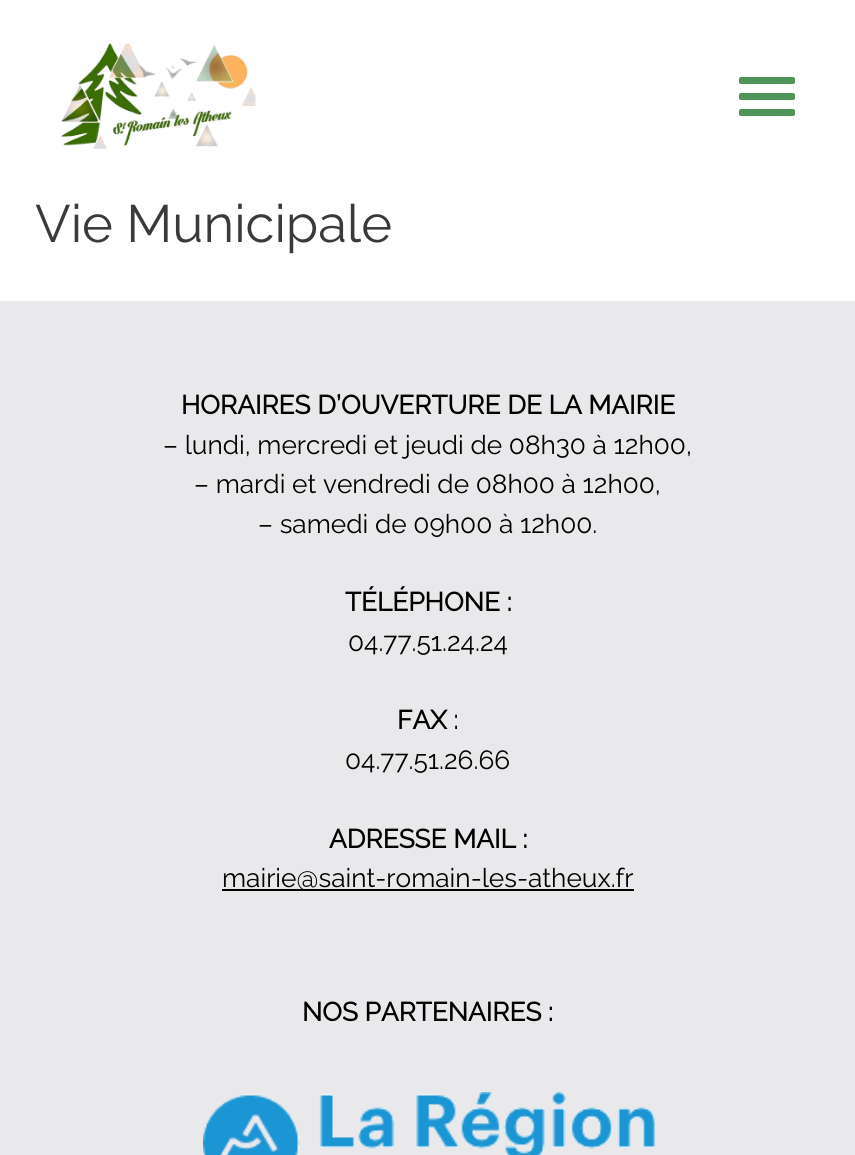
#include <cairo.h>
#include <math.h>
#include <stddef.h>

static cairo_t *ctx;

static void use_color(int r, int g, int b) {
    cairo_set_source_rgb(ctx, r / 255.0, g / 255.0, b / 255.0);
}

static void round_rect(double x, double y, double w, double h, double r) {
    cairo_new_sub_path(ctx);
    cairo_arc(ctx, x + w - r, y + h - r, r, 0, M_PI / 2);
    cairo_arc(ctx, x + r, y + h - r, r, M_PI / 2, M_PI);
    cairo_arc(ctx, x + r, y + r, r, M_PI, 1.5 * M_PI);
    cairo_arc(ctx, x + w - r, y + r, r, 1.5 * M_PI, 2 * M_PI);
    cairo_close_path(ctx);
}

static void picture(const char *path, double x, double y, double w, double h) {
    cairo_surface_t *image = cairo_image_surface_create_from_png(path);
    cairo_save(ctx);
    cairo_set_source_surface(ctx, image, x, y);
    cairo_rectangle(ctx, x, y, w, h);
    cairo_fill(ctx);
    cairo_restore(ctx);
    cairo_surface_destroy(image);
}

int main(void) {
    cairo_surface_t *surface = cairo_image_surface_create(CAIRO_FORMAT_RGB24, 855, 1155);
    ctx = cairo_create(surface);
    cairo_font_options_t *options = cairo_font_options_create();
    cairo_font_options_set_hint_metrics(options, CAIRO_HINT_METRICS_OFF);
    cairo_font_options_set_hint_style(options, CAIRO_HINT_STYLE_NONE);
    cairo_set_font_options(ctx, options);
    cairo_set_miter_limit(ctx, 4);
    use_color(255, 255, 255);
    cairo_paint(ctx);
    picture("img1.png", 61, 43, 195, 106);
    use_color(79, 148, 89);
    round_rect(739, 77, 56, 7, 2);
    cairo_fill(ctx);
    round_rect(739, 93, 56, 7, 2);
    cairo_fill(ctx);
    round_rect(739, 109, 56, 7, 2);
    cairo_fill(ctx);
    cairo_select_font_face(ctx, "Raleway Thin", CAIRO_FONT_SLANT_NORMAL, CAIRO_FONT_WEIGHT_NORMAL);
    cairo_set_font_size(ctx, 52.5);
    use_color(58, 58, 58);
    cairo_move_to(ctx, 35, 242);
    cairo_show_text(ctx, "Vie Municipale");
    use_color(233, 233, 235);
    cairo_rectangle(ctx, 0, 301, 855, 854);
    cairo_fill(ctx);
    cairo_select_font_face(ctx, "Raleway", CAIRO_FONT_SLANT_NORMAL, CAIRO_FONT_WEIGHT_BOLD);
    cairo_set_font_size(ctx, 26.25);
    use_color(0, 0, 0);
    cairo_move_to(ctx, 181, 414);
    cairo_show_text(ctx, "HORAIRES D’OUVERTURE DE LA MAIRIE");
    cairo_select_font_face(ctx, "Raleway Thin", CAIRO_FONT_SLANT_NORMAL, CAIRO_FONT_WEIGHT_NORMAL);
    cairo_move_to(ctx, 163, 454);
    cairo_show_text(ctx, "– lundi, mercredi et jeudi de 08h30 à 12h00,");
    cairo_move_to(ctx, 194, 493);
    cairo_show_text(ctx, "– mardi et vendredi de 08h00 à 12h00,");
    cairo_move_to(ctx, 258, 533);
    cairo_show_text(ctx, "– samedi de 09h00 à 12h00.");
    cairo_select_font_face(ctx, "Raleway", CAIRO_FONT_SLANT_NORMAL, CAIRO_FONT_WEIGHT_BOLD);
    cairo_move_to(ctx, 345, 611);
    cairo_show_text(ctx, "TÉLÉPHONE :");
    cairo_select_font_face(ctx, "Raleway Thin", CAIRO_FONT_SLANT_NORMAL, CAIRO_FONT_WEIGHT_NORMAL);
    cairo_move_to(ctx, 348, 651);
    cairo_show_text(ctx, "04.77.51.24.24");
    cairo_select_font_face(ctx, "Raleway", CAIRO_FONT_SLANT_NORMAL, CAIRO_FONT_WEIGHT_BOLD);
    cairo_move_to(ctx, 397, 729);
    cairo_show_text(ctx, "FAX :");
    cairo_select_font_face(ctx, "Raleway Thin", CAIRO_FONT_SLANT_NORMAL, CAIRO_FONT_WEIGHT_NORMAL);
    cairo_move_to(ctx, 345, 769);
    cairo_show_text(ctx, "04.77.51.26.66");
    cairo_select_font_face(ctx, "Raleway", CAIRO_FONT_SLANT_NORMAL, CAIRO_FONT_WEIGHT_BOLD);
    cairo_move_to(ctx, 329, 848);
    cairo_show_text(ctx, "ADRESSE MAIL :");
    cairo_rectangle(ctx, 222, 889, 412, 2);
    cairo_fill(ctx);
    cairo_select_font_face(ctx, "Raleway Thin", CAIRO_FONT_SLANT_NORMAL, CAIRO_FONT_WEIGHT_NORMAL);
    cairo_move_to(ctx, 222, 887);
    cairo_show_text(ctx, "mairie@saint-romain-les-atheux.fr");
    cairo_select_font_face(ctx, "Raleway", CAIRO_FONT_SLANT_NORMAL, CAIRO_FONT_WEIGHT_BOLD);
    cairo_move_to(ctx, 302, 1021);
    cairo_show_text(ctx, "NOS PARTENAIRES :");
    picture("img2.png", 203, 1092, 452, 63);
    cairo_surface_write_to_png(surface, "result.png");
    cairo_font_options_destroy(options);
    cairo_destroy(ctx);
    cairo_surface_destroy(surface);
    return 0;
}
